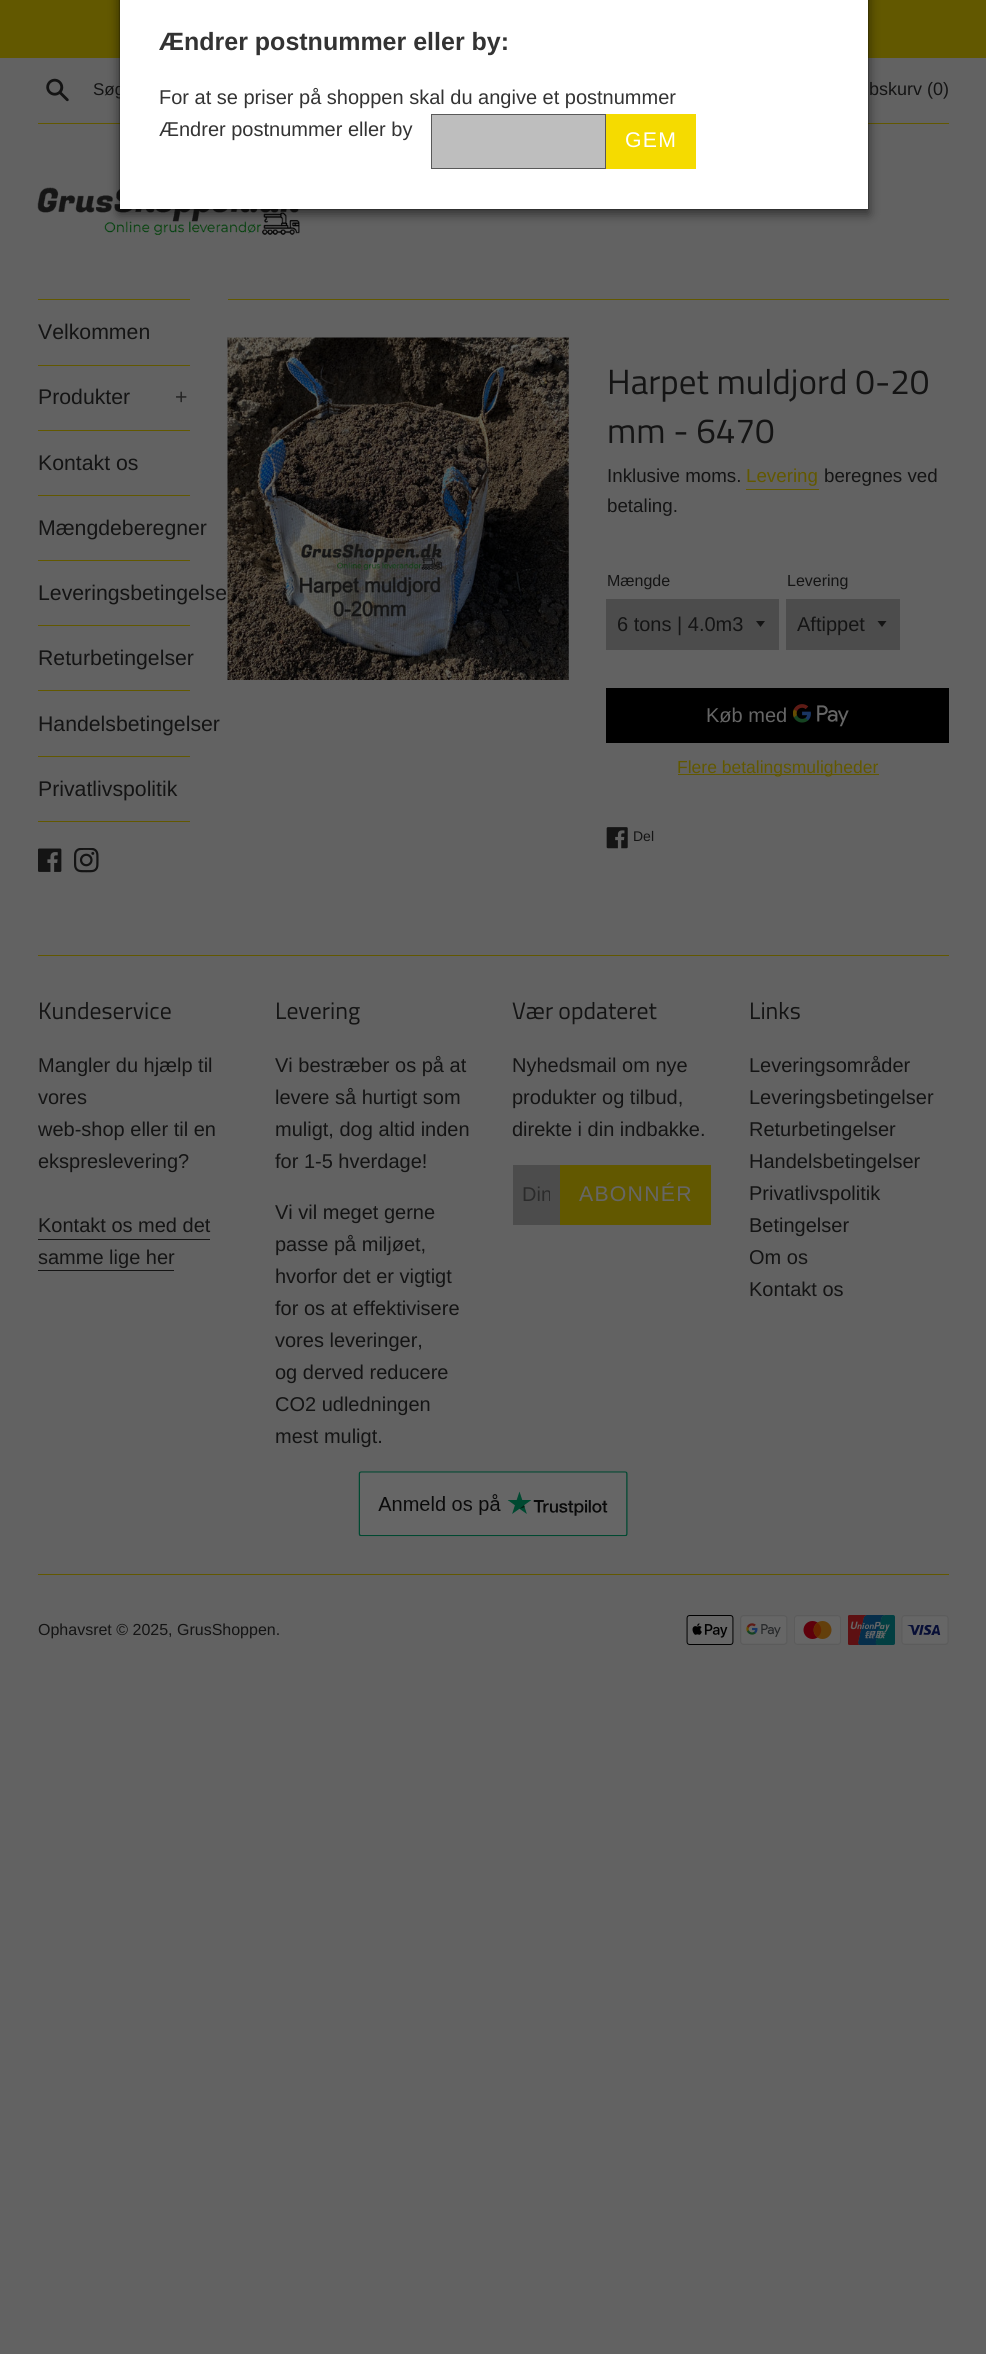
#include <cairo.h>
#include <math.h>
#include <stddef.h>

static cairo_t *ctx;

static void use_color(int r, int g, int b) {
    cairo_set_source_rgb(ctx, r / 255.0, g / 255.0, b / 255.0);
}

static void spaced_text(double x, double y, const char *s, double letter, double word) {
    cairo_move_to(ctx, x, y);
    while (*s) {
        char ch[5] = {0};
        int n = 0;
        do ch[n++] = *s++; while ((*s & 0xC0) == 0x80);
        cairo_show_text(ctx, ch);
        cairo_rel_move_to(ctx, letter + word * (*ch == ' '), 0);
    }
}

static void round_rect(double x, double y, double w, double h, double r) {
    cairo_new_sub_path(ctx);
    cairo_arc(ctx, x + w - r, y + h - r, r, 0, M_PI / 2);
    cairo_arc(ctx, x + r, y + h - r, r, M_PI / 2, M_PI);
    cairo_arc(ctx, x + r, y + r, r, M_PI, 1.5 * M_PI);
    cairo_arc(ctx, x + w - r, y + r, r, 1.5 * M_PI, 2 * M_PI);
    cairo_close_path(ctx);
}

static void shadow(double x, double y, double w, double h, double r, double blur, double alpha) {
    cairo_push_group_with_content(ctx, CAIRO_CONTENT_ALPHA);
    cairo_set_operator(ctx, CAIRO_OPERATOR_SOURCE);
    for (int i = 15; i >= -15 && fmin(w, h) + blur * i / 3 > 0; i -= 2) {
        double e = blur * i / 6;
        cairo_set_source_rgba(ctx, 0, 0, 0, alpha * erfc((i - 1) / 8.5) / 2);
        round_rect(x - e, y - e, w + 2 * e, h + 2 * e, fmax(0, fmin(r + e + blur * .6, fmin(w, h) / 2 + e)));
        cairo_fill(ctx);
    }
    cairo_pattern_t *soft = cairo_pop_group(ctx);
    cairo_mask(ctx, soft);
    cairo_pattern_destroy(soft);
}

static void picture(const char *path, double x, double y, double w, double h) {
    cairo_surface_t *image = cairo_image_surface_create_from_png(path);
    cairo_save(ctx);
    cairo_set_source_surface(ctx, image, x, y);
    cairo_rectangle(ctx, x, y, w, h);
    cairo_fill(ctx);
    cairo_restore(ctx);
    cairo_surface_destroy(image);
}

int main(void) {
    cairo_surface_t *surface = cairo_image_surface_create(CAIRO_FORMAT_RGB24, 986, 2354);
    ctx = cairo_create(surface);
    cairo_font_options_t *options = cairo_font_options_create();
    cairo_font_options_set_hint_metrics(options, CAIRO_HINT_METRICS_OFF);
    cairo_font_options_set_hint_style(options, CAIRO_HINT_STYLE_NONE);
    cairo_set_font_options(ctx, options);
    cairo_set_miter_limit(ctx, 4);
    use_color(98, 98, 98);
    cairo_paint(ctx);
    use_color(98, 88, 0);
    cairo_rectangle(ctx, 0, 0, 986, 58);
    cairo_fill(ctx);
    cairo_rectangle(ctx, 38, 123, 911, 1);
    cairo_fill(ctx);
    picture("img2.png", 37, 187, 263, 48);
    use_color(0, 0, 0);
    shadow(119, -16, 750, 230, 0, 5.5, 0.5);
    cairo_select_font_face(ctx, "Liberation Sans", CAIRO_FONT_SLANT_NORMAL, CAIRO_FONT_WEIGHT_NORMAL);
    cairo_set_font_size(ctx, 17);
    use_color(20, 20, 20);
    cairo_move_to(ctx, 93, 95);
    cairo_show_text(ctx, "Søg");
    use_color(255, 255, 255);
    cairo_rectangle(ctx, 120, 0, 748, 209);
    cairo_fill(ctx);
    cairo_rectangle(ctx, 119.5, -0.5, 749, 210);
    cairo_set_source_rgba(ctx, 0, 0, 0, 0.2);
    cairo_set_line_width(ctx, 1);
    cairo_stroke(ctx);
    cairo_select_font_face(ctx, "Liberation Sans", CAIRO_FONT_SLANT_NORMAL, CAIRO_FONT_WEIGHT_BOLD);
    cairo_set_font_size(ctx, 25);
    use_color(51, 51, 51);
    cairo_move_to(ctx, 159, 50);
    cairo_show_text(ctx, "Ændrer postnummer eller by:");
    cairo_select_font_face(ctx, "Liberation Sans", CAIRO_FONT_SLANT_NORMAL, CAIRO_FONT_WEIGHT_NORMAL);
    cairo_set_font_size(ctx, 20);
    cairo_move_to(ctx, 159, 104);
    cairo_show_text(ctx, "For at se priser på shoppen skal du angive et postnummer");
    cairo_move_to(ctx, 159, 136);
    cairo_show_text(ctx, "Ændrer postnummer eller by");
    use_color(190, 190, 190);
    cairo_rectangle(ctx, 431.5, 114.5, 174, 54);
    cairo_fill_preserve(ctx);
    use_color(89, 89, 89);
    cairo_stroke(ctx);
    use_color(245, 219, 0);
    cairo_rectangle(ctx, 606, 114, 90, 55);
    cairo_fill(ctx);
    cairo_set_font_size(ctx, 21.25);
    use_color(255, 255, 255);
    spaced_text(625, 147, "GEM", 1.25, 0);
    picture("img1.png", 46, 78, 23, 24);
    cairo_set_font_size(ctx, 18);
    use_color(20, 20, 20);
    cairo_move_to(ctx, 869, 95);
    cairo_show_text(ctx, "bskurv (0)");
    use_color(98, 88, 0);
    cairo_rectangle(ctx, 38, 299, 152, 1);
    cairo_fill(ctx);
    cairo_rectangle(ctx, 38, 365, 152, 1);
    cairo_fill(ctx);
    cairo_set_font_size(ctx, 21.25);
    use_color(20, 20, 20);
    cairo_move_to(ctx, 38, 339);
    cairo_show_text(ctx, "Velkommen");
    use_color(98, 88, 0);
    cairo_rectangle(ctx, 38, 430, 152, 1);
    cairo_fill(ctx);
    use_color(20, 20, 20);
    cairo_move_to(ctx, 38, 404);
    cairo_show_text(ctx, "Produkter");
    use_color(36, 36, 36);
    cairo_move_to(ctx, 175, 404);
    cairo_show_text(ctx, "+");
    use_color(98, 88, 0);
    cairo_rectangle(ctx, 38, 495, 152, 1);
    cairo_fill(ctx);
    use_color(20, 20, 20);
    cairo_move_to(ctx, 38, 470);
    cairo_show_text(ctx, "Kontakt os");
    use_color(98, 88, 0);
    cairo_rectangle(ctx, 38, 560, 152, 1);
    cairo_fill(ctx);
    use_color(20, 20, 20);
    cairo_move_to(ctx, 38, 535);
    cairo_show_text(ctx, "Mængdeberegner");
    use_color(98, 88, 0);
    cairo_rectangle(ctx, 38, 625, 152, 1);
    cairo_fill(ctx);
    use_color(20, 20, 20);
    cairo_move_to(ctx, 38, 600);
    cairo_show_text(ctx, "Leveringsbetingelse");
    use_color(98, 88, 0);
    cairo_rectangle(ctx, 38, 690, 152, 1);
    cairo_fill(ctx);
    use_color(20, 20, 20);
    cairo_move_to(ctx, 38, 665);
    cairo_show_text(ctx, "Returbetingelser");
    use_color(98, 88, 0);
    cairo_rectangle(ctx, 38, 756, 152, 1);
    cairo_fill(ctx);
    use_color(20, 20, 20);
    cairo_move_to(ctx, 38, 731);
    cairo_show_text(ctx, "Handelsbetingelser");
    use_color(98, 88, 0);
    cairo_rectangle(ctx, 38, 821, 152, 1);
    cairo_fill(ctx);
    use_color(20, 20, 20);
    cairo_move_to(ctx, 38, 796);
    cairo_show_text(ctx, "Privatlivspolitik");
    picture("img3.png", 38, 848, 24, 24);
    picture("img4.png", 74, 848, 25, 25);
    use_color(98, 88, 0);
    cairo_rectangle(ctx, 228, 299, 721, 1);
    cairo_fill(ctx);
    picture("img5.png", 227, 337, 342, 343);
    cairo_select_font_face(ctx, "Titillium Web", CAIRO_FONT_SLANT_NORMAL, CAIRO_FONT_WEIGHT_NORMAL);
    cairo_set_font_size(ctx, 35);
    use_color(20, 20, 20);
    cairo_move_to(ctx, 607, 394);
    cairo_show_text(ctx, "Harpet muldjord 0-20");
    cairo_move_to(ctx, 607, 443);
    cairo_show_text(ctx, "mm - 6470");
    cairo_select_font_face(ctx, "Liberation Sans", CAIRO_FONT_SLANT_NORMAL, CAIRO_FONT_WEIGHT_NORMAL);
    cairo_set_font_size(ctx, 18.75);
    cairo_move_to(ctx, 607, 482);
    cairo_show_text(ctx, "Inklusive moms.");
    use_color(98, 88, 0);
    cairo_move_to(ctx, 746, 482);
    cairo_show_text(ctx, "Levering");
    cairo_rectangle(ctx, 746, 489, 73, 1);
    cairo_fill(ctx);
    use_color(20, 20, 20);
    cairo_move_to(ctx, 824, 482);
    cairo_show_text(ctx, "beregnes ved");
    cairo_move_to(ctx, 607, 512);
    cairo_show_text(ctx, "betaling.");
    cairo_set_font_size(ctx, 16);
    cairo_move_to(ctx, 607, 586);
    cairo_show_text(ctx, "Mængde");
    use_color(76, 76, 76);
    cairo_rectangle(ctx, 606, 599, 173, 51);
    cairo_fill(ctx);
    use_color(20, 20, 20);
    cairo_new_path(ctx);
    cairo_move_to(ctx, 756, 621);
    cairo_line_to(ctx, 760.5, 627);
    cairo_line_to(ctx, 765, 621);
    cairo_close_path(ctx);
    cairo_fill(ctx);
    cairo_set_font_size(ctx, 20);
    cairo_move_to(ctx, 617, 631);
    cairo_show_text(ctx, "6 tons | 4.0m3");
    cairo_set_font_size(ctx, 16);
    cairo_move_to(ctx, 787, 586);
    cairo_show_text(ctx, "Levering");
    use_color(76, 76, 76);
    cairo_rectangle(ctx, 786, 599, 114, 51);
    cairo_fill(ctx);
    use_color(20, 20, 20);
    cairo_new_path(ctx);
    cairo_move_to(ctx, 877.5, 621);
    cairo_line_to(ctx, 882, 627);
    cairo_line_to(ctx, 886.5, 621);
    cairo_close_path(ctx);
    cairo_fill(ctx);
    cairo_set_font_size(ctx, 20);
    cairo_move_to(ctx, 797, 631);
    cairo_show_text(ctx, "Aftippet");
    use_color(0, 0, 0);
    cairo_rectangle(ctx, 606, 688, 343, 55);
    cairo_fill(ctx);
    use_color(102, 102, 102);
    cairo_move_to(ctx, 706, 722);
    cairo_show_text(ctx, "Køb med");
    picture("img6.png", 793, 704, 56, 23);
    use_color(98, 88, 0);
    cairo_rectangle(ctx, 678, 774, 201, 1);
    cairo_fill(ctx);
    cairo_set_font_size(ctx, 17.5);
    cairo_move_to(ctx, 677, 773);
    cairo_show_text(ctx, "Flere betalingsmuligheder");
    picture("img7.png", 606, 827, 22, 22);
    cairo_set_font_size(ctx, 14);
    use_color(20, 20, 20);
    cairo_move_to(ctx, 633, 841);
    cairo_show_text(ctx, "Del");
    use_color(98, 88, 0);
    cairo_rectangle(ctx, 38, 955, 911, 1);
    cairo_fill(ctx);
    cairo_select_font_face(ctx, "Titillium Web", CAIRO_FONT_SLANT_NORMAL, CAIRO_FONT_WEIGHT_NORMAL);
    cairo_set_font_size(ctx, 23.75);
    use_color(20, 20, 20);
    cairo_move_to(ctx, 38, 1019);
    cairo_show_text(ctx, "Kundeservice");
    cairo_select_font_face(ctx, "Liberation Sans", CAIRO_FONT_SLANT_NORMAL, CAIRO_FONT_WEIGHT_NORMAL);
    cairo_set_font_size(ctx, 20);
    cairo_move_to(ctx, 38, 1072);
    cairo_show_text(ctx, "Mangler du hjælp til");
    cairo_move_to(ctx, 38, 1104);
    cairo_show_text(ctx, "vores");
    cairo_move_to(ctx, 38, 1136);
    cairo_show_text(ctx, "web-shop eller til en");
    cairo_move_to(ctx, 38, 1168);
    cairo_show_text(ctx, "ekspreslevering?");
    cairo_move_to(ctx, 38, 1232);
    cairo_show_text(ctx, "Kontakt os med det");
    cairo_rectangle(ctx, 38, 1239, 172, 1);
    cairo_fill(ctx);
    cairo_move_to(ctx, 38, 1264);
    cairo_show_text(ctx, "samme lige her");
    cairo_rectangle(ctx, 38, 1270, 136, 1);
    cairo_fill(ctx);
    cairo_select_font_face(ctx, "Titillium Web", CAIRO_FONT_SLANT_NORMAL, CAIRO_FONT_WEIGHT_NORMAL);
    cairo_set_font_size(ctx, 23.75);
    cairo_move_to(ctx, 275, 1019);
    cairo_show_text(ctx, "Levering");
    cairo_select_font_face(ctx, "Liberation Sans", CAIRO_FONT_SLANT_NORMAL, CAIRO_FONT_WEIGHT_NORMAL);
    cairo_set_font_size(ctx, 20);
    cairo_move_to(ctx, 275, 1072);
    cairo_show_text(ctx, "Vi bestræber os på at");
    cairo_move_to(ctx, 275, 1104);
    cairo_show_text(ctx, "levere så hurtigt som");
    cairo_move_to(ctx, 275, 1136);
    cairo_show_text(ctx, "muligt, dog altid inden");
    cairo_move_to(ctx, 275, 1168);
    cairo_show_text(ctx, "for 1-5 hverdage!");
    cairo_move_to(ctx, 275, 1219);
    cairo_show_text(ctx, "Vi vil meget gerne");
    cairo_move_to(ctx, 275, 1251);
    cairo_show_text(ctx, "passe på miljøet,");
    cairo_move_to(ctx, 275, 1283);
    cairo_show_text(ctx, "hvorfor det er vigtigt");
    cairo_move_to(ctx, 275, 1315);
    cairo_show_text(ctx, "for os at effektivisere");
    cairo_move_to(ctx, 275, 1347);
    cairo_show_text(ctx, "vores leveringer,");
    cairo_move_to(ctx, 275, 1379);
    cairo_show_text(ctx, "og derved reducere");
    cairo_move_to(ctx, 275, 1411);
    cairo_show_text(ctx, "CO2 udledningen");
    cairo_move_to(ctx, 275, 1443);
    cairo_show_text(ctx, "mest muligt.");
    cairo_select_font_face(ctx, "Titillium Web", CAIRO_FONT_SLANT_NORMAL, CAIRO_FONT_WEIGHT_NORMAL);
    cairo_set_font_size(ctx, 23.75);
    cairo_move_to(ctx, 512, 1019);
    cairo_show_text(ctx, "Vær opdateret");
    cairo_select_font_face(ctx, "Liberation Sans", CAIRO_FONT_SLANT_NORMAL, CAIRO_FONT_WEIGHT_NORMAL);
    cairo_set_font_size(ctx, 20);
    cairo_move_to(ctx, 512, 1072);
    cairo_show_text(ctx, "Nyhedsmail om nye");
    cairo_move_to(ctx, 512, 1104);
    cairo_show_text(ctx, "produkter og tilbud,");
    cairo_move_to(ctx, 512, 1136);
    cairo_show_text(ctx, "direkte i din indbakke.");
    use_color(76, 76, 76);
    cairo_rectangle(ctx, 513, 1165, 47, 60);
    cairo_fill(ctx);
    cairo_save(ctx);
    cairo_rectangle(ctx, 523, 1184, 27, 22);
    cairo_clip(ctx);
    use_color(43, 43, 43);
    cairo_move_to(ctx, 522, 1201);
    cairo_show_text(ctx, "Din");
    cairo_restore(ctx);
    use_color(98, 88, 0);
    cairo_rectangle(ctx, 560, 1165, 151, 60);
    cairo_fill(ctx);
    cairo_set_font_size(ctx, 21.25);
    use_color(102, 102, 102);
    spaced_text(579, 1201, "ABONNÉR", 1.25, 0);
    cairo_select_font_face(ctx, "Titillium Web", CAIRO_FONT_SLANT_NORMAL, CAIRO_FONT_WEIGHT_NORMAL);
    cairo_set_font_size(ctx, 23.75);
    use_color(20, 20, 20);
    cairo_move_to(ctx, 749, 1019);
    cairo_show_text(ctx, "Links");
    cairo_select_font_face(ctx, "Liberation Sans", CAIRO_FONT_SLANT_NORMAL, CAIRO_FONT_WEIGHT_NORMAL);
    cairo_set_font_size(ctx, 20);
    cairo_move_to(ctx, 749, 1072);
    cairo_show_text(ctx, "Leveringsområder");
    cairo_move_to(ctx, 749, 1104);
    cairo_show_text(ctx, "Leveringsbetingelser");
    cairo_move_to(ctx, 749, 1136);
    cairo_show_text(ctx, "Returbetingelser");
    cairo_move_to(ctx, 749, 1168);
    cairo_show_text(ctx, "Handelsbetingelser");
    cairo_move_to(ctx, 749, 1200);
    cairo_show_text(ctx, "Privatlivspolitik");
    cairo_move_to(ctx, 749, 1232);
    cairo_show_text(ctx, "Betingelser");
    cairo_move_to(ctx, 749, 1264);
    cairo_show_text(ctx, "Om os");
    cairo_move_to(ctx, 749, 1296);
    cairo_show_text(ctx, "Kontakt os");
    picture("img8.png", 358, 1471, 270, 66);
    use_color(98, 88, 0);
    cairo_rectangle(ctx, 38, 1574, 911, 1);
    cairo_fill(ctx);
    cairo_set_font_size(ctx, 16);
    use_color(20, 20, 20);
    cairo_move_to(ctx, 38, 1635);
    cairo_show_text(ctx, "Ophavsret © 2025, GrusShoppen.");
    picture("img9.png", 686, 1615, 48, 30);
    picture("img10.png", 740, 1615, 48, 30);
    picture("img11.png", 794, 1615, 47, 30);
    picture("img12.png", 848, 1615, 47, 30);
    picture("img13.png", 901, 1615, 48, 30);
    cairo_surface_write_to_png(surface, "result.png");
    cairo_font_options_destroy(options);
    cairo_destroy(ctx);
    cairo_surface_destroy(surface);
    return 0;
}
